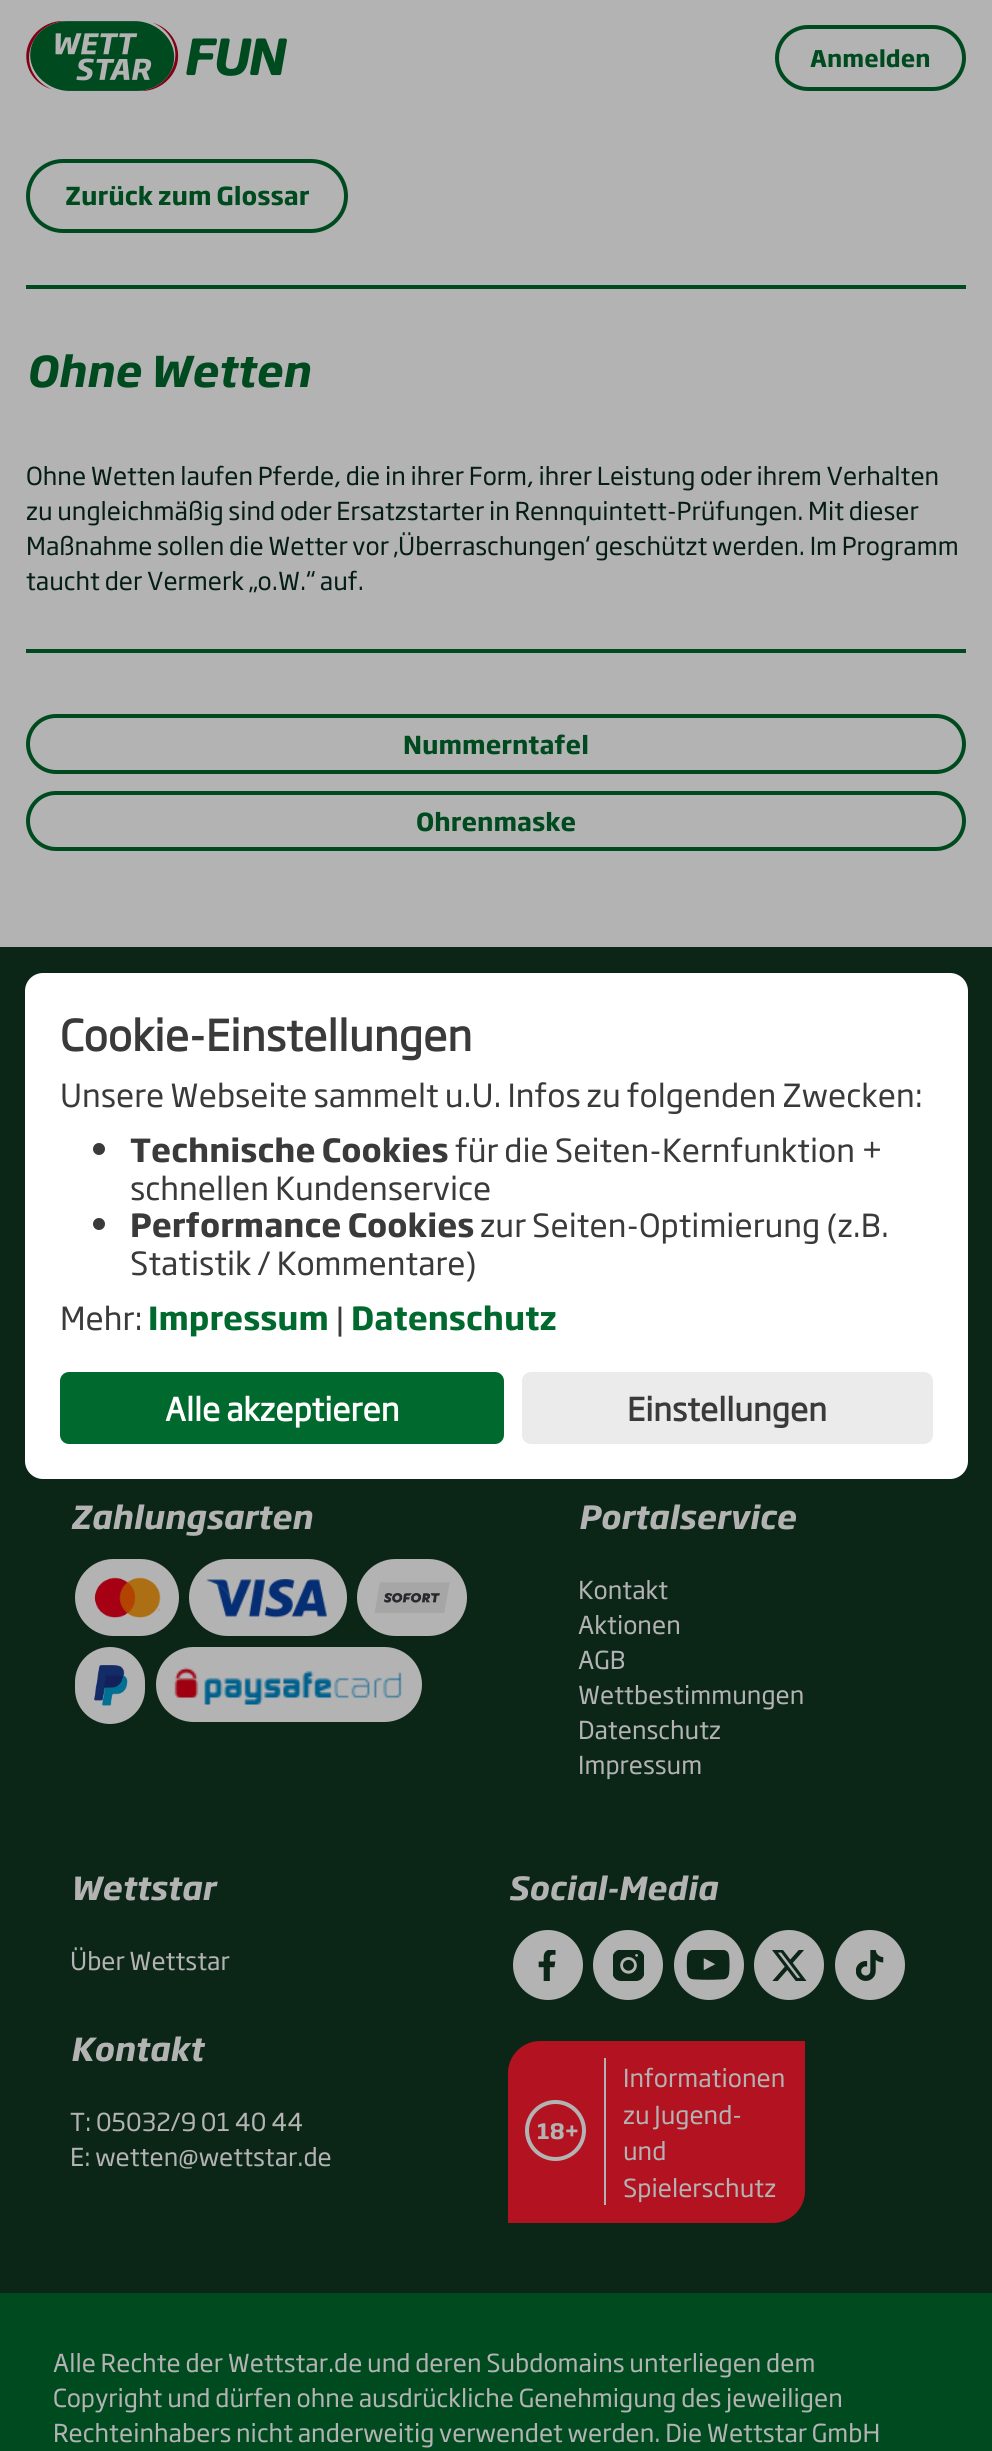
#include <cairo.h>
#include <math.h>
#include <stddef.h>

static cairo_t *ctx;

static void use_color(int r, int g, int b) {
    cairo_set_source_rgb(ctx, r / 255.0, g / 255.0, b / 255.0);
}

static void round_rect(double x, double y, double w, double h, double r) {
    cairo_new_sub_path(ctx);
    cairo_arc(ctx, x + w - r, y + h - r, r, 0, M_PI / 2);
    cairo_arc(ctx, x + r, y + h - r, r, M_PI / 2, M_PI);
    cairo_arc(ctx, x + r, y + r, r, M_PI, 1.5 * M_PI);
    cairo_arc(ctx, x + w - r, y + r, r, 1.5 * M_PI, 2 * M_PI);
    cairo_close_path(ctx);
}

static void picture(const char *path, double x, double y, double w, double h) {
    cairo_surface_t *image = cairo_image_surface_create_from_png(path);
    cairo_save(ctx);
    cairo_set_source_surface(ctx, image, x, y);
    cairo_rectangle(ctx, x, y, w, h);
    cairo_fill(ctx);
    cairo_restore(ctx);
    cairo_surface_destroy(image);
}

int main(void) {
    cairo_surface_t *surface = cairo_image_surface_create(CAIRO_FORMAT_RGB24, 992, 2451);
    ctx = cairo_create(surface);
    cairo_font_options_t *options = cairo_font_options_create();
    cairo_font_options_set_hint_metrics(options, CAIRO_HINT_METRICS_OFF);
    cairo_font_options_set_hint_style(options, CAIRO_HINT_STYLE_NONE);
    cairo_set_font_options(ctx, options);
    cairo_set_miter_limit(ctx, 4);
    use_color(179, 179, 179);
    cairo_paint(ctx);
    picture("img1.png", 26, 21, 261, 70);
    round_rect(777, 27, 187, 62, 31);
    use_color(0, 74, 31);
    cairo_set_line_width(ctx, 4);
    cairo_stroke(ctx);
    cairo_select_font_face(ctx, "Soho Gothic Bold", CAIRO_FONT_SLANT_NORMAL, CAIRO_FONT_WEIGHT_BOLD);
    cairo_set_font_size(ctx, 22.75);
    cairo_move_to(ctx, 810, 67);
    cairo_show_text(ctx, "Anmelden");
    cairo_rectangle(ctx, 26, 285, 940, 4);
    cairo_fill(ctx);
    round_rect(28, 161, 318, 70, 35);
    cairo_stroke(ctx);
    cairo_set_font_size(ctx, 24.5);
    cairo_move_to(ctx, 65, 205);
    cairo_show_text(ctx, "Zurück zum Glossar");
    cairo_select_font_face(ctx, "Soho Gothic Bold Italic", CAIRO_FONT_SLANT_ITALIC, CAIRO_FONT_WEIGHT_BOLD);
    cairo_set_font_size(ctx, 42);
    cairo_move_to(ctx, 26, 387);
    cairo_show_text(ctx, "Ohne Wetten");
    cairo_select_font_face(ctx, "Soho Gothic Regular", CAIRO_FONT_SLANT_NORMAL, CAIRO_FONT_WEIGHT_NORMAL);
    cairo_set_font_size(ctx, 24.5);
    use_color(5, 29, 22);
    cairo_move_to(ctx, 26, 485);
    cairo_show_text(ctx, "Ohne Wetten laufen Pferde, die in ihrer Form, ihrer Leistung oder ihrem Verhalten");
    cairo_move_to(ctx, 26, 520);
    cairo_show_text(ctx, "zu ungleichmäßig sind oder Ersatzstarter in Rennquintett-Prüfungen. Mit dieser");
    cairo_move_to(ctx, 26, 555);
    cairo_show_text(ctx, "Maßnahme sollen die Wetter vor ‚Überraschungen‘ geschützt werden. Im Programm");
    cairo_move_to(ctx, 26, 590);
    cairo_show_text(ctx, "taucht der Vermerk „o.W.“ auf.");
    use_color(0, 74, 31);
    cairo_rectangle(ctx, 26, 649, 940, 4);
    cairo_fill(ctx);
    round_rect(28, 716, 936, 56, 28);
    cairo_stroke(ctx);
    cairo_select_font_face(ctx, "Soho Gothic Bold", CAIRO_FONT_SLANT_NORMAL, CAIRO_FONT_WEIGHT_BOLD);
    cairo_move_to(ctx, 403, 754);
    cairo_show_text(ctx, "Nummerntafel");
    round_rect(28, 793, 936, 56, 28);
    cairo_stroke(ctx);
    cairo_move_to(ctx, 416, 831);
    cairo_show_text(ctx, "Ohrenmaske");
    use_color(11, 37, 23);
    cairo_rectangle(ctx, 0, 947, 992, 1346);
    cairo_fill(ctx);
    use_color(255, 255, 255);
    round_rect(25, 973, 943, 506, 18);
    cairo_fill(ctx);
    cairo_select_font_face(ctx, "Soho Gothic Regular", CAIRO_FONT_SLANT_NORMAL, CAIRO_FONT_WEIGHT_BOLD);
    cairo_set_font_size(ctx, 42);
    use_color(58, 58, 58);
    cairo_move_to(ctx, 60, 1051);
    cairo_show_text(ctx, "Cookie-Einstellungen");
    cairo_select_font_face(ctx, "Soho Gothic Regular", CAIRO_FONT_SLANT_NORMAL, CAIRO_FONT_WEIGHT_NORMAL);
    cairo_set_font_size(ctx, 31.5);
    cairo_move_to(ctx, 60, 1107);
    cairo_show_text(ctx, "Unsere Webseite sammelt u.U. Infos zu folgenden Zwecken:");
    cairo_new_path(ctx);
    cairo_arc(ctx, 99, 1149, 6, 0, 2 * M_PI);
    cairo_fill(ctx);
    cairo_select_font_face(ctx, "Soho Gothic Bold", CAIRO_FONT_SLANT_NORMAL, CAIRO_FONT_WEIGHT_BOLD);
    cairo_move_to(ctx, 130, 1162);
    cairo_show_text(ctx, "Technische Cookies");
    cairo_select_font_face(ctx, "Soho Gothic Regular", CAIRO_FONT_SLANT_NORMAL, CAIRO_FONT_WEIGHT_NORMAL);
    cairo_move_to(ctx, 455, 1162);
    cairo_show_text(ctx, "für die Seiten-Kernfunktion +");
    cairo_move_to(ctx, 130, 1200);
    cairo_show_text(ctx, "schnellen Kundenservice");
    cairo_new_path(ctx);
    cairo_arc(ctx, 99, 1224, 6, 0, 2 * M_PI);
    cairo_fill(ctx);
    cairo_select_font_face(ctx, "Soho Gothic Bold", CAIRO_FONT_SLANT_NORMAL, CAIRO_FONT_WEIGHT_BOLD);
    cairo_move_to(ctx, 130, 1237);
    cairo_show_text(ctx, "Performance Cookies");
    cairo_select_font_face(ctx, "Soho Gothic Regular", CAIRO_FONT_SLANT_NORMAL, CAIRO_FONT_WEIGHT_NORMAL);
    cairo_move_to(ctx, 480, 1237);
    cairo_show_text(ctx, "zur Seiten-Optimierung (z.B.");
    cairo_move_to(ctx, 130, 1275);
    cairo_show_text(ctx, "Statistik / Kommentare)");
    cairo_move_to(ctx, 60, 1330);
    cairo_show_text(ctx, "Mehr:");
    cairo_select_font_face(ctx, "Soho Gothic Bold", CAIRO_FONT_SLANT_NORMAL, CAIRO_FONT_WEIGHT_BOLD);
    use_color(0, 105, 45);
    cairo_move_to(ctx, 148, 1330);
    cairo_show_text(ctx, "Impressum");
    cairo_select_font_face(ctx, "Soho Gothic Regular", CAIRO_FONT_SLANT_NORMAL, CAIRO_FONT_WEIGHT_NORMAL);
    use_color(58, 58, 58);
    cairo_move_to(ctx, 335, 1330);
    cairo_show_text(ctx, "|");
    cairo_select_font_face(ctx, "Soho Gothic Bold", CAIRO_FONT_SLANT_NORMAL, CAIRO_FONT_WEIGHT_BOLD);
    use_color(0, 105, 45);
    cairo_move_to(ctx, 351, 1330);
    cairo_show_text(ctx, "Datenschutz");
    round_rect(60, 1372, 444, 72, 9);
    cairo_fill(ctx);
    cairo_select_font_face(ctx, "Soho Gothic Regular", CAIRO_FONT_SLANT_NORMAL, CAIRO_FONT_WEIGHT_BOLD);
    use_color(255, 255, 255);
    cairo_move_to(ctx, 165, 1421);
    cairo_show_text(ctx, "Alle akzeptieren");
    use_color(235, 235, 235);
    round_rect(522, 1372, 411, 72, 9);
    cairo_fill(ctx);
    use_color(58, 58, 58);
    cairo_move_to(ctx, 627, 1421);
    cairo_show_text(ctx, "Einstellungen");
    cairo_select_font_face(ctx, "Soho Gothic Bold Italic", CAIRO_FONT_SLANT_ITALIC, CAIRO_FONT_WEIGHT_BOLD);
    use_color(179, 179, 179);
    cairo_move_to(ctx, 70, 1529);
    cairo_show_text(ctx, "Zahlungsarten");
    round_rect(75, 1559, 104, 77, 38.5);
    cairo_fill(ctx);
    picture("img2.png", 94, 1577, 67, 41);
    round_rect(189, 1559, 158, 77, 38.5);
    cairo_fill(ctx);
    picture("img3.png", 206, 1579, 121, 39);
    round_rect(357, 1559, 110, 77, 38.5);
    cairo_fill(ctx);
    picture("img4.png", 374, 1582, 76, 31);
    round_rect(75, 1647, 70, 77, 35);
    cairo_fill(ctx);
    picture("img5.png", 94, 1665, 34, 41);
    round_rect(156, 1647, 266, 75, 37.5);
    cairo_fill(ctx);
    picture("img6.png", 174, 1667, 228, 38);
    cairo_move_to(ctx, 578, 1529);
    cairo_show_text(ctx, "Portalservice");
    cairo_select_font_face(ctx, "Soho Gothic Regular", CAIRO_FONT_SLANT_NORMAL, CAIRO_FONT_WEIGHT_NORMAL);
    cairo_set_font_size(ctx, 24.5);
    cairo_move_to(ctx, 578, 1599);
    cairo_show_text(ctx, "Kontakt");
    cairo_move_to(ctx, 578, 1634);
    cairo_show_text(ctx, "Aktionen");
    cairo_move_to(ctx, 578, 1669);
    cairo_show_text(ctx, "AGB");
    cairo_move_to(ctx, 578, 1704);
    cairo_show_text(ctx, "Wettbestimmungen");
    cairo_move_to(ctx, 578, 1739);
    cairo_show_text(ctx, "Datenschutz");
    cairo_move_to(ctx, 578, 1774);
    cairo_show_text(ctx, "Impressum");
    cairo_select_font_face(ctx, "Soho Gothic Bold Italic", CAIRO_FONT_SLANT_ITALIC, CAIRO_FONT_WEIGHT_BOLD);
    cairo_set_font_size(ctx, 31.5);
    cairo_move_to(ctx, 70, 1900);
    cairo_show_text(ctx, "Wettstar");
    cairo_select_font_face(ctx, "Soho Gothic Regular", CAIRO_FONT_SLANT_NORMAL, CAIRO_FONT_WEIGHT_NORMAL);
    cairo_set_font_size(ctx, 24.5);
    cairo_move_to(ctx, 70, 1970);
    cairo_show_text(ctx, "Über Wettstar");
    cairo_select_font_face(ctx, "Soho Gothic Bold Italic", CAIRO_FONT_SLANT_ITALIC, CAIRO_FONT_WEIGHT_BOLD);
    cairo_set_font_size(ctx, 31.5);
    cairo_move_to(ctx, 70, 2061);
    cairo_show_text(ctx, "Kontakt");
    cairo_select_font_face(ctx, "Soho Gothic Regular", CAIRO_FONT_SLANT_NORMAL, CAIRO_FONT_WEIGHT_NORMAL);
    cairo_set_font_size(ctx, 24.5);
    cairo_move_to(ctx, 70, 2131);
    cairo_show_text(ctx, "T: 05032/9 01 40 44");
    cairo_move_to(ctx, 70, 2166);
    cairo_show_text(ctx, "E: wetten@wettstar.de");
    cairo_select_font_face(ctx, "Soho Gothic Bold Italic", CAIRO_FONT_SLANT_ITALIC, CAIRO_FONT_WEIGHT_BOLD);
    cairo_set_font_size(ctx, 31.5);
    cairo_move_to(ctx, 508, 1900);
    cairo_show_text(ctx, "Social-Media");
    cairo_new_path(ctx);
    cairo_arc(ctx, 548, 1965, 35, 0, 2 * M_PI);
    cairo_fill(ctx);
    picture("img7.png", 538, 1950, 18, 31);
    cairo_arc(ctx, 628, 1965, 35, 0, 2 * M_PI);
    cairo_fill(ctx);
    picture("img8.png", 613, 1950, 31, 31);
    cairo_arc(ctx, 709, 1965, 35, 0, 2 * M_PI);
    cairo_fill(ctx);
    picture("img9.png", 686, 1950, 44, 30);
    cairo_arc(ctx, 789, 1965, 35, 0, 2 * M_PI);
    cairo_fill(ctx);
    picture("img10.png", 772, 1950, 35, 31);
    cairo_arc(ctx, 870, 1965, 35, 0, 2 * M_PI);
    cairo_fill(ctx);
    picture("img11.png", 856, 1950, 28, 31);
    use_color(179, 18, 32);
    cairo_new_path(ctx);
    cairo_move_to(ctx, 540, 2041);
    cairo_line_to(ctx, 805, 2041);
    cairo_line_to(ctx, 805, 2191);
    cairo_curve_to(ctx, 805, 2208.5, 790.5, 2223, 773, 2223);
    cairo_line_to(ctx, 508, 2223);
    cairo_line_to(ctx, 508, 2073);
    cairo_curve_to(ctx, 508, 2055.5, 522.5, 2041, 540, 2041);
    cairo_close_path(ctx);
    cairo_fill(ctx);
    cairo_arc(ctx, 555.5, 2130.5, 28.5, 0, 2 * M_PI);
    use_color(179, 179, 179);
    cairo_stroke(ctx);
    cairo_select_font_face(ctx, "Soho Gothic Bold", CAIRO_FONT_SLANT_NORMAL, CAIRO_FONT_WEIGHT_BOLD);
    cairo_set_font_size(ctx, 21);
    cairo_move_to(ctx, 537, 2139);
    cairo_show_text(ctx, "18+");
    cairo_rectangle(ctx, 604, 2058, 2, 147);
    cairo_fill(ctx);
    cairo_select_font_face(ctx, "Soho Gothic Regular", CAIRO_FONT_SLANT_NORMAL, CAIRO_FONT_WEIGHT_NORMAL);
    cairo_set_font_size(ctx, 24.5);
    cairo_move_to(ctx, 623, 2087);
    cairo_show_text(ctx, "Informationen");
    cairo_move_to(ctx, 623, 2124);
    cairo_show_text(ctx, "zu Jugend-");
    cairo_move_to(ctx, 623, 2160);
    cairo_show_text(ctx, "und");
    cairo_move_to(ctx, 623, 2197);
    cairo_show_text(ctx, "Spielerschutz");
    use_color(0, 74, 31);
    cairo_rectangle(ctx, 0, 2293, 992, 158);
    cairo_fill(ctx);
    use_color(179, 179, 179);
    cairo_move_to(ctx, 53, 2372);
    cairo_show_text(ctx, "Alle Rechte der Wettstar.de und deren Subdomains unterliegen dem");
    cairo_move_to(ctx, 53, 2407);
    cairo_show_text(ctx, "Copyright und dürfen ohne ausdrückliche Genehmigung des jeweiligen");
    cairo_move_to(ctx, 53, 2442);
    cairo_show_text(ctx, "Rechteinhabers nicht anderweitig verwendet werden. Die Wettstar GmbH");
    cairo_surface_write_to_png(surface, "result.png");
    cairo_font_options_destroy(options);
    cairo_destroy(ctx);
    cairo_surface_destroy(surface);
    return 0;
}
